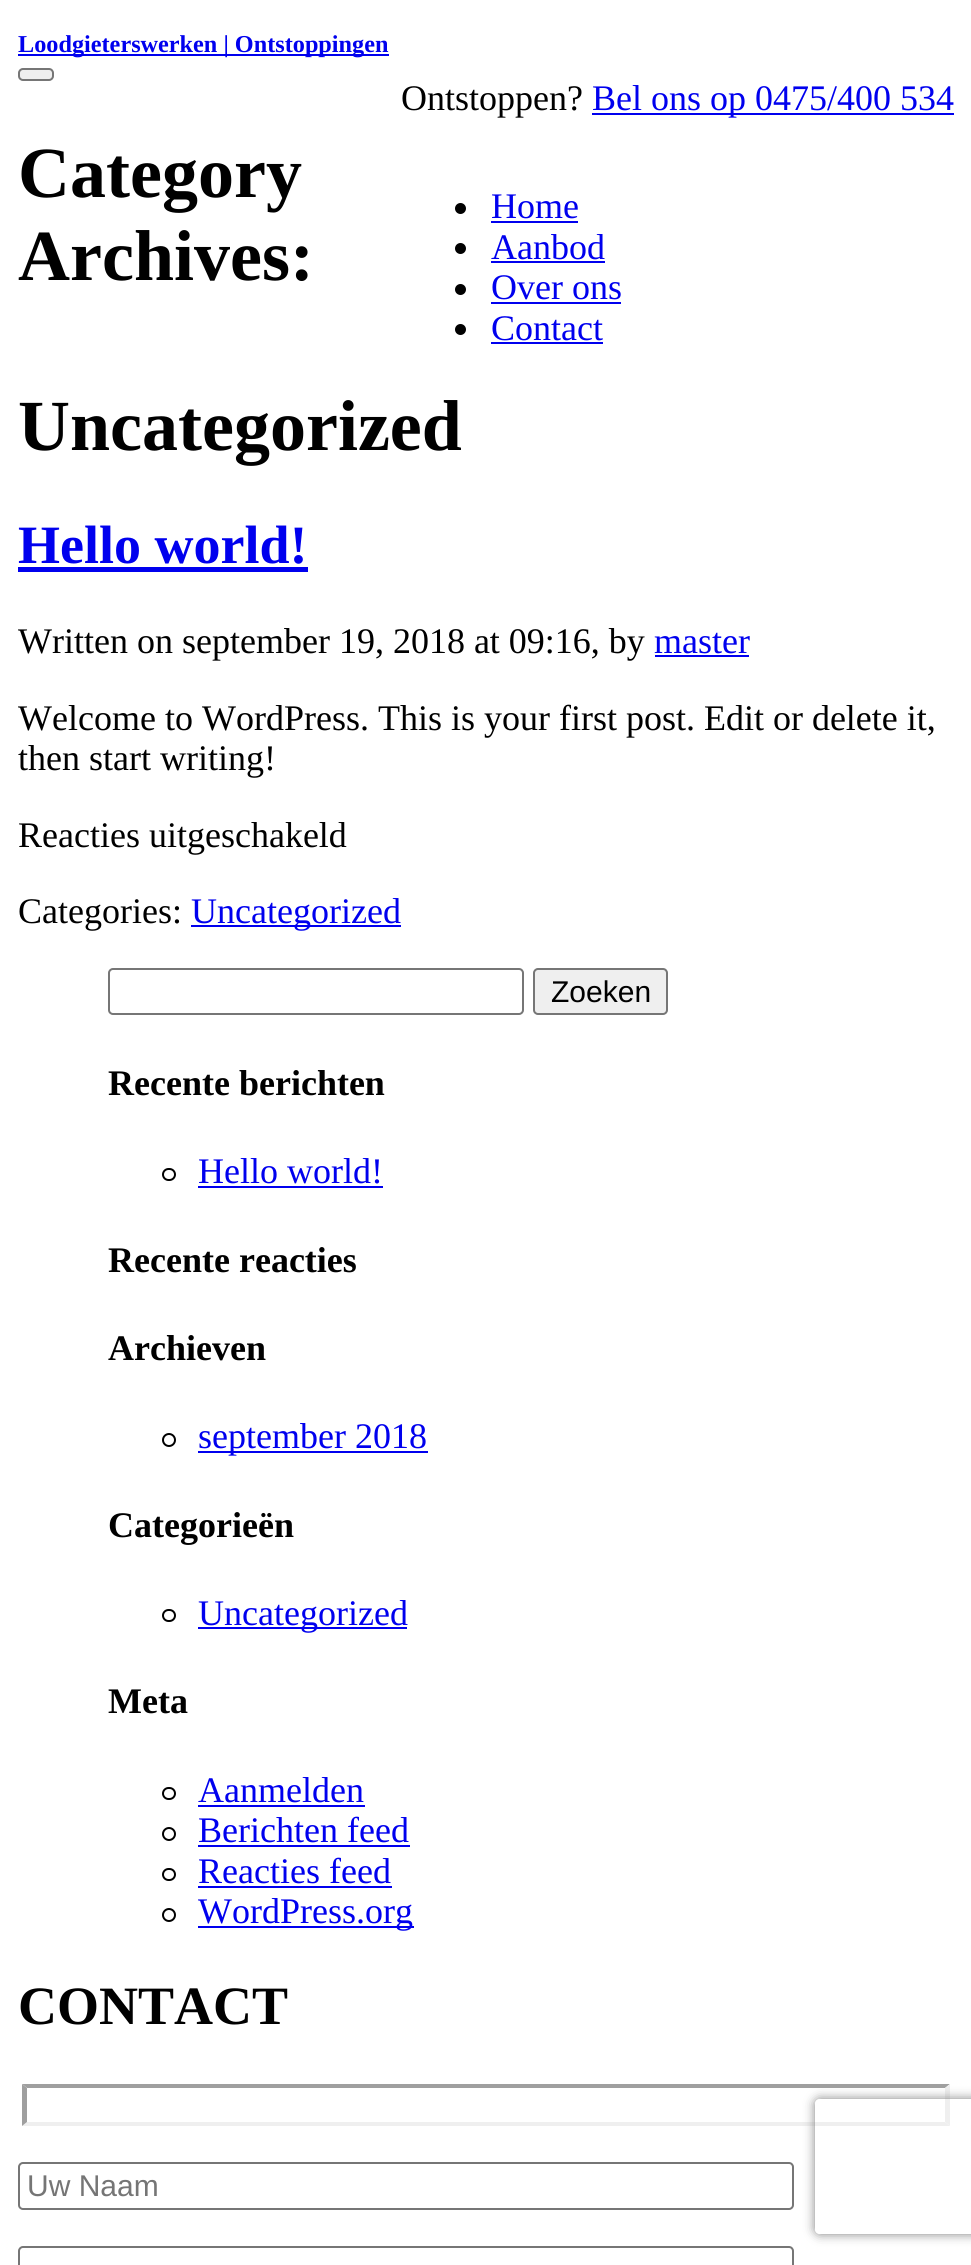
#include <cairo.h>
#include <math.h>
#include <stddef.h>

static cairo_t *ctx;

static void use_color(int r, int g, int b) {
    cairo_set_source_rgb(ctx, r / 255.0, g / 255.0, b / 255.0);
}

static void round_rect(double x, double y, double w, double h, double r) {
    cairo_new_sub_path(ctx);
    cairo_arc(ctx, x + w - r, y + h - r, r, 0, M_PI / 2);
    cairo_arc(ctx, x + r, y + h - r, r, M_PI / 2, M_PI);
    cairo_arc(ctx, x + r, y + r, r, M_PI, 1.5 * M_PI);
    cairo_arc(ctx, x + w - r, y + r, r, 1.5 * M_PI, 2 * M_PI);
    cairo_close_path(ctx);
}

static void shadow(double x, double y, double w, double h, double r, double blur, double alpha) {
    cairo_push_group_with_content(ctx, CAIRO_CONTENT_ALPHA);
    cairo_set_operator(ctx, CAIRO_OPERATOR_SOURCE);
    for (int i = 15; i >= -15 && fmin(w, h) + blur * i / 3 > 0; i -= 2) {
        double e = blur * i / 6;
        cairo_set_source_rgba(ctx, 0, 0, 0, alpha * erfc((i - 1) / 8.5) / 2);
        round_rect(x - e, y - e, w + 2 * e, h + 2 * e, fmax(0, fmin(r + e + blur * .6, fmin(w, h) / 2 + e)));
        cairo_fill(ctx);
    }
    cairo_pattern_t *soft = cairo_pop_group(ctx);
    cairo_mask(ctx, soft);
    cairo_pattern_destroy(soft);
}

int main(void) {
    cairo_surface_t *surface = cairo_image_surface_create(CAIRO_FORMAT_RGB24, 971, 2265);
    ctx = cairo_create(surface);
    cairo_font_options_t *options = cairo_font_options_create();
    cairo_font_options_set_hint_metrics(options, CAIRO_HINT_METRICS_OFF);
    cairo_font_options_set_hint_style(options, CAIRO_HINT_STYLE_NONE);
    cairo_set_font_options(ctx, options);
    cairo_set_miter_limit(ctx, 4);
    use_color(255, 255, 255);
    cairo_paint(ctx);
    use_color(0, 0, 238);
    cairo_rectangle(ctx, 18, 54, 371, 2);
    cairo_fill(ctx);
    cairo_select_font_face(ctx, "Liberation Serif", CAIRO_FONT_SLANT_NORMAL, CAIRO_FONT_WEIGHT_BOLD);
    cairo_set_font_size(ctx, 24.25);
    cairo_move_to(ctx, 18, 52);
    cairo_show_text(ctx, "Loodgieterswerken | Ontstoppingen");
    use_color(239, 239, 239);
    round_rect(19, 69, 34, 11, 4);
    cairo_fill_preserve(ctx);
    use_color(118, 118, 118);
    cairo_stroke(ctx);
    cairo_select_font_face(ctx, "Liberation Serif", CAIRO_FONT_SLANT_NORMAL, CAIRO_FONT_WEIGHT_NORMAL);
    cairo_set_font_size(ctx, 36);
    use_color(0, 0, 0);
    cairo_move_to(ctx, 401, 110);
    cairo_show_text(ctx, "Ontstoppen?");
    use_color(0, 0, 238);
    cairo_rectangle(ctx, 592, 113, 362, 2);
    cairo_fill(ctx);
    cairo_move_to(ctx, 592, 110);
    cairo_show_text(ctx, "Bel ons op 0475/400 534");
    use_color(0, 0, 0);
    cairo_new_path(ctx);
    cairo_arc(ctx, 460.5, 208.5, 5.5, 0, 2 * M_PI);
    cairo_fill(ctx);
    use_color(0, 0, 238);
    cairo_move_to(ctx, 491, 218);
    cairo_show_text(ctx, "Home");
    cairo_rectangle(ctx, 491, 221, 87, 2);
    cairo_fill(ctx);
    use_color(0, 0, 0);
    cairo_arc(ctx, 460.5, 248.5, 5.5, 0, 2 * M_PI);
    cairo_fill(ctx);
    use_color(0, 0, 238);
    cairo_move_to(ctx, 491, 259);
    cairo_show_text(ctx, "Aanbod");
    cairo_rectangle(ctx, 491, 261, 114, 2);
    cairo_fill(ctx);
    use_color(0, 0, 0);
    cairo_arc(ctx, 460.5, 289.5, 5.5, 0, 2 * M_PI);
    cairo_fill(ctx);
    use_color(0, 0, 238);
    cairo_move_to(ctx, 491, 299);
    cairo_show_text(ctx, "Over ons");
    cairo_rectangle(ctx, 491, 302, 130, 2);
    cairo_fill(ctx);
    use_color(0, 0, 0);
    cairo_arc(ctx, 460.5, 329.5, 5.5, 0, 2 * M_PI);
    cairo_fill(ctx);
    use_color(0, 0, 238);
    cairo_move_to(ctx, 491, 340);
    cairo_show_text(ctx, "Contact");
    cairo_rectangle(ctx, 491, 342, 112, 2);
    cairo_fill(ctx);
    cairo_select_font_face(ctx, "Liberation Serif", CAIRO_FONT_SLANT_NORMAL, CAIRO_FONT_WEIGHT_BOLD);
    cairo_set_font_size(ctx, 72);
    use_color(0, 0, 0);
    cairo_move_to(ctx, 18, 197);
    cairo_show_text(ctx, "Category");
    cairo_move_to(ctx, 18, 280);
    cairo_show_text(ctx, "Archives:");
    cairo_move_to(ctx, 18, 450);
    cairo_show_text(ctx, "Uncategorized");
    cairo_set_font_size(ctx, 54);
    use_color(0, 0, 238);
    cairo_move_to(ctx, 18, 563);
    cairo_show_text(ctx, "Hello world!");
    cairo_rectangle(ctx, 18, 567, 290, 5);
    cairo_fill(ctx);
    cairo_select_font_face(ctx, "Liberation Serif", CAIRO_FONT_SLANT_NORMAL, CAIRO_FONT_WEIGHT_NORMAL);
    cairo_set_font_size(ctx, 36);
    use_color(0, 0, 0);
    cairo_move_to(ctx, 18, 653);
    cairo_show_text(ctx, "Written on september 19, 2018 at 09:16, by");
    use_color(0, 0, 238);
    cairo_move_to(ctx, 654, 653);
    cairo_show_text(ctx, "master");
    cairo_rectangle(ctx, 655, 655, 94, 2);
    cairo_fill(ctx);
    use_color(0, 0, 0);
    cairo_move_to(ctx, 18, 730);
    cairo_show_text(ctx, "Welcome to WordPress. This is your first post. Edit or delete it,");
    cairo_move_to(ctx, 18, 770);
    cairo_show_text(ctx, "then start writing!");
    cairo_move_to(ctx, 18, 847);
    cairo_show_text(ctx, "Reacties uitgeschakeld");
    cairo_move_to(ctx, 18, 923);
    cairo_show_text(ctx, "Categories:");
    use_color(0, 0, 238);
    cairo_rectangle(ctx, 191, 925, 210, 2);
    cairo_fill(ctx);
    cairo_move_to(ctx, 191, 923);
    cairo_show_text(ctx, "Uncategorized");
    round_rect(109, 969, 414, 45, 4);
    use_color(118, 118, 118);
    cairo_stroke(ctx);
    use_color(239, 239, 239);
    round_rect(534, 969, 133, 45, 4);
    cairo_fill_preserve(ctx);
    use_color(118, 118, 118);
    cairo_stroke(ctx);
    cairo_select_font_face(ctx, "Liberation Sans", CAIRO_FONT_SLANT_NORMAL, CAIRO_FONT_WEIGHT_NORMAL);
    cairo_set_font_size(ctx, 30);
    use_color(0, 0, 0);
    cairo_move_to(ctx, 551, 1002);
    cairo_show_text(ctx, "Zoeken");
    cairo_select_font_face(ctx, "Liberation Serif", CAIRO_FONT_SLANT_NORMAL, CAIRO_FONT_WEIGHT_BOLD);
    cairo_set_font_size(ctx, 36);
    cairo_move_to(ctx, 108, 1095);
    cairo_show_text(ctx, "Recente berichten");
    round_rect(163, 1169, 12, 11, 5.5);
    cairo_stroke(ctx);
    cairo_select_font_face(ctx, "Liberation Serif", CAIRO_FONT_SLANT_NORMAL, CAIRO_FONT_WEIGHT_NORMAL);
    use_color(0, 0, 238);
    cairo_move_to(ctx, 198, 1183);
    cairo_show_text(ctx, "Hello world!");
    cairo_rectangle(ctx, 198, 1186, 185, 2);
    cairo_fill(ctx);
    cairo_select_font_face(ctx, "Liberation Serif", CAIRO_FONT_SLANT_NORMAL, CAIRO_FONT_WEIGHT_BOLD);
    use_color(0, 0, 0);
    cairo_move_to(ctx, 108, 1272);
    cairo_show_text(ctx, "Recente reacties");
    cairo_move_to(ctx, 108, 1360);
    cairo_show_text(ctx, "Archieven");
    cairo_new_path(ctx);
    cairo_arc(ctx, 169, 1440, 6, 0, 2 * M_PI);
    cairo_stroke(ctx);
    use_color(0, 0, 238);
    cairo_rectangle(ctx, 198, 1451, 230, 2);
    cairo_fill(ctx);
    cairo_select_font_face(ctx, "Liberation Serif", CAIRO_FONT_SLANT_NORMAL, CAIRO_FONT_WEIGHT_NORMAL);
    cairo_move_to(ctx, 198, 1448);
    cairo_show_text(ctx, "september 2018");
    cairo_select_font_face(ctx, "Liberation Serif", CAIRO_FONT_SLANT_NORMAL, CAIRO_FONT_WEIGHT_BOLD);
    use_color(0, 0, 0);
    cairo_move_to(ctx, 108, 1537);
    cairo_show_text(ctx, "Categorieën");
    round_rect(163, 1610, 12, 11, 5.5);
    cairo_stroke(ctx);
    use_color(0, 0, 238);
    cairo_rectangle(ctx, 198, 1627, 209, 2);
    cairo_fill(ctx);
    cairo_select_font_face(ctx, "Liberation Serif", CAIRO_FONT_SLANT_NORMAL, CAIRO_FONT_WEIGHT_NORMAL);
    cairo_move_to(ctx, 198, 1625);
    cairo_show_text(ctx, "Uncategorized");
    cairo_select_font_face(ctx, "Liberation Serif", CAIRO_FONT_SLANT_NORMAL, CAIRO_FONT_WEIGHT_BOLD);
    use_color(0, 0, 0);
    cairo_move_to(ctx, 108, 1713);
    cairo_show_text(ctx, "Meta");
    round_rect(163, 1788, 12, 11, 5.5);
    cairo_stroke(ctx);
    cairo_select_font_face(ctx, "Liberation Serif", CAIRO_FONT_SLANT_NORMAL, CAIRO_FONT_WEIGHT_NORMAL);
    use_color(0, 0, 238);
    cairo_move_to(ctx, 198, 1802);
    cairo_show_text(ctx, "Aanmelden");
    cairo_rectangle(ctx, 198, 1805, 167, 2);
    cairo_fill(ctx);
    cairo_arc(ctx, 169, 1834, 6, 0, 2 * M_PI);
    use_color(0, 0, 0);
    cairo_stroke(ctx);
    use_color(0, 0, 238);
    cairo_move_to(ctx, 198, 1842);
    cairo_show_text(ctx, "Berichten feed");
    cairo_rectangle(ctx, 198, 1845, 212, 2);
    cairo_fill(ctx);
    round_rect(163, 1869, 12, 11, 5.5);
    use_color(0, 0, 0);
    cairo_stroke(ctx);
    use_color(0, 0, 238);
    cairo_move_to(ctx, 198, 1883);
    cairo_show_text(ctx, "Reacties feed");
    cairo_rectangle(ctx, 198, 1886, 194, 2);
    cairo_fill(ctx);
    cairo_arc(ctx, 169, 1915, 6, 0, 2 * M_PI);
    use_color(0, 0, 0);
    cairo_stroke(ctx);
    use_color(0, 0, 238);
    cairo_rectangle(ctx, 198, 1926, 216, 2);
    cairo_fill(ctx);
    cairo_move_to(ctx, 198, 1923);
    cairo_show_text(ctx, "WordPress.org");
    cairo_select_font_face(ctx, "Liberation Serif", CAIRO_FONT_SLANT_NORMAL, CAIRO_FONT_WEIGHT_BOLD);
    cairo_set_font_size(ctx, 54);
    use_color(0, 0, 0);
    cairo_move_to(ctx, 18, 2024);
    cairo_show_text(ctx, "CONTACT");
    use_color(159, 159, 159);
    cairo_new_path(ctx);
    cairo_move_to(ctx, 22, 2084);
    cairo_line_to(ctx, 950, 2084);
    cairo_line_to(ctx, 945, 2088);
    cairo_line_to(ctx, 27, 2088);
    cairo_close_path(ctx);
    cairo_fill(ctx);
    use_color(239, 239, 239);
    cairo_new_path(ctx);
    cairo_move_to(ctx, 950, 2084);
    cairo_line_to(ctx, 950, 2126);
    cairo_line_to(ctx, 945, 2122);
    cairo_line_to(ctx, 945, 2088);
    cairo_close_path(ctx);
    cairo_fill(ctx);
    cairo_new_path(ctx);
    cairo_move_to(ctx, 950, 2126);
    cairo_line_to(ctx, 22, 2126);
    cairo_line_to(ctx, 27, 2122);
    cairo_line_to(ctx, 945, 2122);
    cairo_close_path(ctx);
    cairo_fill(ctx);
    use_color(159, 159, 159);
    cairo_new_path(ctx);
    cairo_move_to(ctx, 22, 2126);
    cairo_line_to(ctx, 22, 2084);
    cairo_line_to(ctx, 27, 2088);
    cairo_line_to(ctx, 27, 2122);
    cairo_close_path(ctx);
    cairo_fill(ctx);
    round_rect(19, 2163, 774, 46, 4);
    use_color(118, 118, 118);
    cairo_stroke(ctx);
    cairo_select_font_face(ctx, "Liberation Sans", CAIRO_FONT_SLANT_NORMAL, CAIRO_FONT_WEIGHT_NORMAL);
    cairo_set_font_size(ctx, 30);
    use_color(117, 117, 117);
    cairo_move_to(ctx, 27, 2196);
    cairo_show_text(ctx, "Uw Naam");
    round_rect(19, 2247, 774, 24, 4);
    use_color(118, 118, 118);
    cairo_stroke(ctx);
    cairo_save(ctx);
    cairo_set_fill_rule(ctx, CAIRO_FILL_RULE_EVEN_ODD);
    cairo_new_path(ctx);
    cairo_move_to(ctx, 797, 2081);
    cairo_line_to(ctx, 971, 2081);
    cairo_line_to(ctx, 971, 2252);
    cairo_line_to(ctx, 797, 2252);
    cairo_close_path(ctx);
    cairo_move_to(ctx, 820, 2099);
    cairo_line_to(ctx, 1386, 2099);
    cairo_curve_to(ctx, 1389, 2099, 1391, 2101, 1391, 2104);
    cairo_line_to(ctx, 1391, 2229);
    cairo_curve_to(ctx, 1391, 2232, 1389, 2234, 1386, 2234);
    cairo_line_to(ctx, 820, 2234);
    cairo_curve_to(ctx, 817, 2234, 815, 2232, 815, 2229);
    cairo_line_to(ctx, 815, 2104);
    cairo_curve_to(ctx, 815, 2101, 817, 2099, 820, 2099);
    cairo_close_path(ctx);
    cairo_clip(ctx);
    use_color(128, 128, 128);
    shadow(815, 2099, 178, 135, 5, 5.5, 1);
    cairo_restore(ctx);
    cairo_surface_write_to_png(surface, "result.png");
    cairo_font_options_destroy(options);
    cairo_destroy(ctx);
    cairo_surface_destroy(surface);
    return 0;
}
